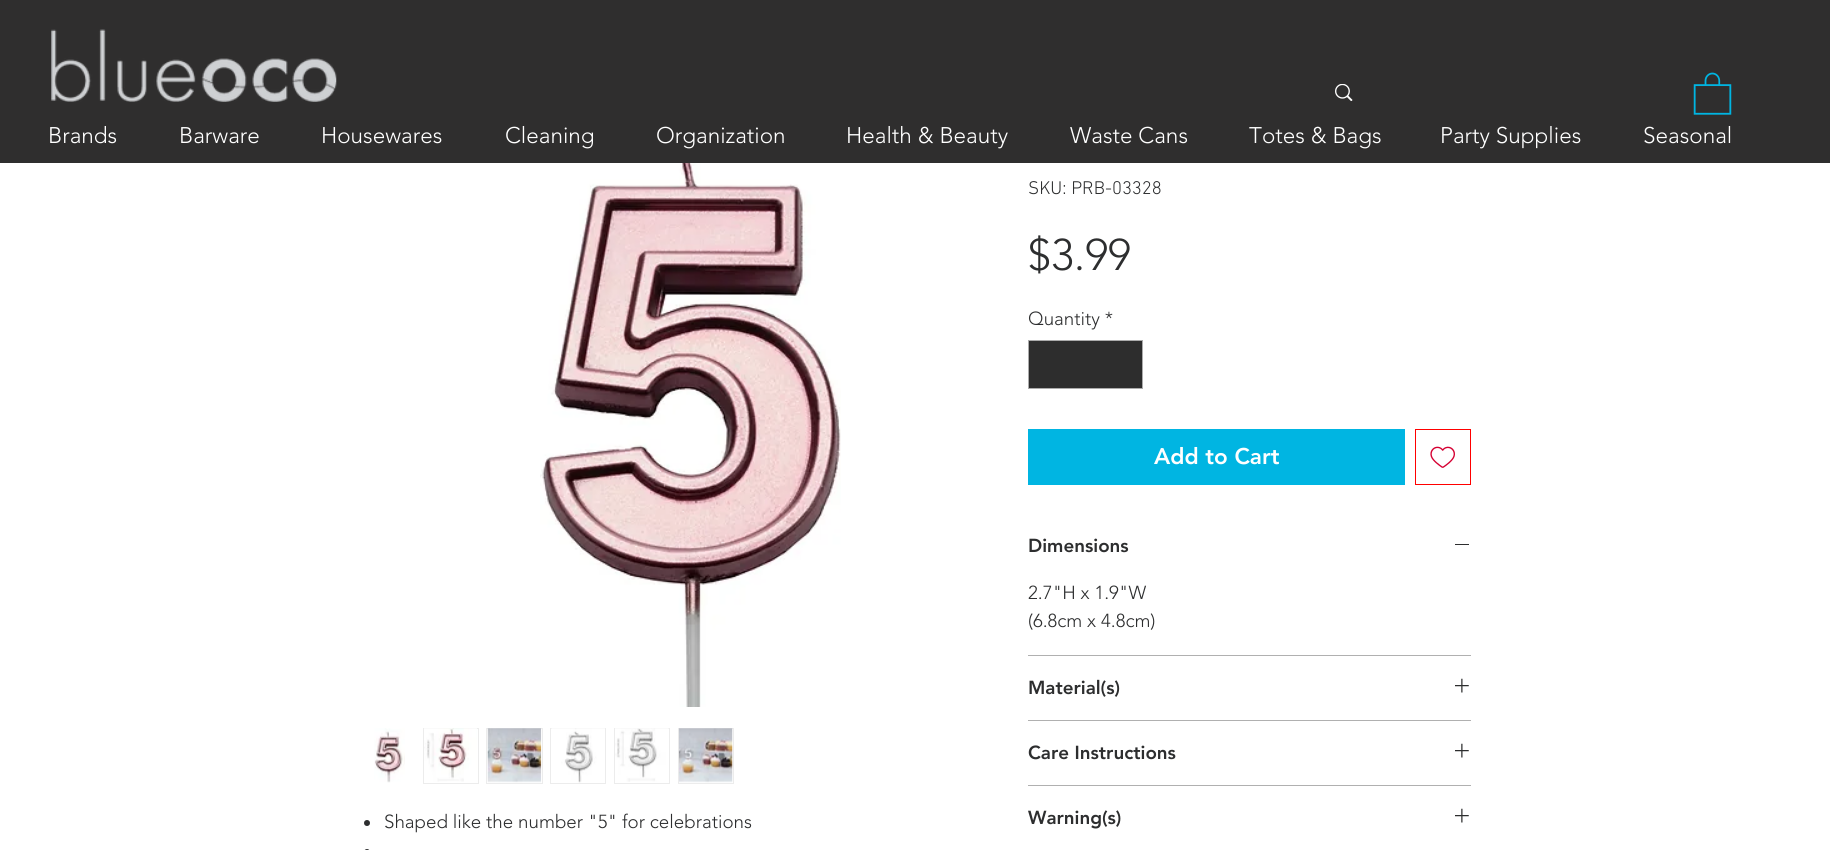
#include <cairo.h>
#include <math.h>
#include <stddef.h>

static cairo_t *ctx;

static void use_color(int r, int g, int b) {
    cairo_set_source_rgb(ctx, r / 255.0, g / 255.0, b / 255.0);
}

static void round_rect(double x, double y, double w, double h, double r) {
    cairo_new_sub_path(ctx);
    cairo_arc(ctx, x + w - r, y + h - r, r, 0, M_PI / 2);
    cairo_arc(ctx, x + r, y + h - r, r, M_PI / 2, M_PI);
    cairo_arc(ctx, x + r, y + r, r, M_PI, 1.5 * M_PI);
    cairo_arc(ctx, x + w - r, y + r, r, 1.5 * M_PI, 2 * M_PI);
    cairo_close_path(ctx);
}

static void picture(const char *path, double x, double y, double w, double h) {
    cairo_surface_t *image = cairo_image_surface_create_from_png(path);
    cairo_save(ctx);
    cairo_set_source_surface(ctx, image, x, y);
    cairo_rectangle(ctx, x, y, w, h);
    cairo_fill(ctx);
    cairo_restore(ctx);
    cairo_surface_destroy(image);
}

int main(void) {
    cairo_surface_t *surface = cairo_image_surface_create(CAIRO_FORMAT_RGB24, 1830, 850);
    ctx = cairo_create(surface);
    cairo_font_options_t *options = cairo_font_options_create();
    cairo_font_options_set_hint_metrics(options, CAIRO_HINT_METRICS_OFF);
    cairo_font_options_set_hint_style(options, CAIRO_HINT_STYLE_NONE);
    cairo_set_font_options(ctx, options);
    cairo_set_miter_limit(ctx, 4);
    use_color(255, 255, 255);
    cairo_paint(ctx);
    use_color(47, 46, 46);
    cairo_rectangle(ctx, 0, 0, 1830, 163);
    cairo_fill(ctx);
    picture("img1.png", 51, 29, 286, 73);
    picture("img2.png", 1335, 84, 18, 17);
    picture("img3.png", 1693, 72, 39, 43);
    cairo_select_font_face(ctx, "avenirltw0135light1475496 Light", CAIRO_FONT_SLANT_NORMAL, CAIRO_FONT_WEIGHT_NORMAL);
    cairo_set_font_size(ctx, 22.5);
    use_color(255, 255, 255);
    cairo_move_to(ctx, 48, 143);
    cairo_show_text(ctx, "Brands");
    cairo_move_to(ctx, 179, 143);
    cairo_show_text(ctx, "Barware");
    cairo_move_to(ctx, 321, 143);
    cairo_show_text(ctx, "Housewares");
    cairo_move_to(ctx, 505, 143);
    cairo_show_text(ctx, "Cleaning");
    cairo_move_to(ctx, 656, 143);
    cairo_show_text(ctx, "Organization");
    cairo_move_to(ctx, 846, 143);
    cairo_show_text(ctx, "Health & Beauty");
    cairo_move_to(ctx, 1070, 143);
    cairo_show_text(ctx, "Waste Cans");
    cairo_move_to(ctx, 1249, 143);
    cairo_show_text(ctx, "Totes & Bags");
    cairo_move_to(ctx, 1440, 143);
    cairo_show_text(ctx, "Party Supplies");
    cairo_move_to(ctx, 1643, 143);
    cairo_show_text(ctx, "Seasonal");
    picture("img4.png", 540, 163, 301, 544);
    picture("img5.png", 374, 728, 31, 55);
    cairo_rectangle(ctx, 423.5, 728.5, 55, 55);
    use_color(236, 236, 236);
    cairo_set_line_width(ctx, 1);
    cairo_stroke(ctx);
    picture("img6.png", 424, 728, 53, 54);
    cairo_rectangle(ctx, 486.5, 728.5, 56, 55);
    cairo_stroke(ctx);
    picture("img7.png", 487, 728, 55, 55);
    cairo_rectangle(ctx, 550.5, 728.5, 55, 55);
    cairo_stroke(ctx);
    picture("img8.png", 551, 728, 54, 55);
    cairo_rectangle(ctx, 614.5, 728.5, 55, 55);
    cairo_stroke(ctx);
    picture("img9.png", 615, 728, 54, 54);
    cairo_rectangle(ctx, 678.5, 728.5, 55, 55);
    cairo_stroke(ctx);
    picture("img10.png", 678, 728, 55, 55);
    use_color(45, 46, 47);
    cairo_arc(ctx, 367, 823, 3, 0, 2 * M_PI);
    cairo_fill(ctx);
    cairo_set_font_size(ctx, 18.75);
    cairo_move_to(ctx, 384, 828);
    cairo_show_text(ctx, "Shaped like the number \"5\" for celebrations");
    round_rect(364, 849, 6, 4, 3);
    cairo_fill(ctx);
    cairo_select_font_face(ctx, "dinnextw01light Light", CAIRO_FONT_SLANT_NORMAL, CAIRO_FONT_WEIGHT_NORMAL);
    cairo_move_to(ctx, 1028, 194);
    cairo_show_text(ctx, "SKU: PRB-03328");
    cairo_select_font_face(ctx, "avenirltw0135light1475496 Light", CAIRO_FONT_SLANT_NORMAL, CAIRO_FONT_WEIGHT_NORMAL);
    cairo_set_font_size(ctx, 44);
    cairo_move_to(ctx, 1028, 270);
    cairo_show_text(ctx, "$3.99");
    cairo_set_font_size(ctx, 18.75);
    cairo_move_to(ctx, 1028, 325);
    cairo_show_text(ctx, "Quantity *");
    use_color(45, 45, 45);
    cairo_rectangle(ctx, 1028.5, 340.5, 114, 48);
    cairo_fill_preserve(ctx);
    use_color(171, 171, 171);
    cairo_stroke(ctx);
    use_color(0, 181, 226);
    cairo_rectangle(ctx, 1028, 429, 377, 56);
    cairo_fill(ctx);
    cairo_select_font_face(ctx, "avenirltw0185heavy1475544 Black", CAIRO_FONT_SLANT_NORMAL, CAIRO_FONT_WEIGHT_NORMAL);
    cairo_set_font_size(ctx, 22.5);
    use_color(255, 255, 255);
    cairo_move_to(ctx, 1154, 464);
    cairo_show_text(ctx, "Add to Cart");
    cairo_rectangle(ctx, 1415.5, 429.5, 55, 55);
    use_color(255, 0, 0);
    cairo_stroke(ctx);
    picture("img11.png", 1430, 446, 25, 22);
    use_color(176, 176, 176);
    cairo_rectangle(ctx, 1028, 655, 443, 1);
    cairo_fill(ctx);
    cairo_set_font_size(ctx, 18.75);
    use_color(45, 46, 47);
    cairo_move_to(ctx, 1028, 552);
    cairo_show_text(ctx, "Dimensions");
    cairo_rectangle(ctx, 1455, 544, 14, 1);
    cairo_fill(ctx);
    cairo_select_font_face(ctx, "avenirltw0135light1475496 Light", CAIRO_FONT_SLANT_NORMAL, CAIRO_FONT_WEIGHT_NORMAL);
    cairo_move_to(ctx, 1028, 599);
    cairo_show_text(ctx, "2.7\"H x 1.9\"W");
    cairo_move_to(ctx, 1028, 627);
    cairo_show_text(ctx, "(6.8cm x 4.8cm)");
    use_color(176, 176, 176);
    cairo_rectangle(ctx, 1028, 720, 443, 1);
    cairo_fill(ctx);
    cairo_select_font_face(ctx, "avenirltw0185heavy1475544 Black", CAIRO_FONT_SLANT_NORMAL, CAIRO_FONT_WEIGHT_NORMAL);
    use_color(45, 46, 47);
    cairo_move_to(ctx, 1028, 694);
    cairo_show_text(ctx, "Material(s)");
    picture("img12.png", 1455, 678, 14, 15);
    use_color(176, 176, 176);
    cairo_rectangle(ctx, 1028, 785, 443, 1);
    cairo_fill(ctx);
    use_color(45, 46, 47);
    cairo_move_to(ctx, 1028, 759);
    cairo_show_text(ctx, "Care Instructions");
    picture("img12.png", 1455, 743, 14, 15);
    cairo_move_to(ctx, 1028, 824);
    cairo_show_text(ctx, "Warning(s)");
    picture("img12.png", 1455, 808, 14, 15);
    cairo_surface_write_to_png(surface, "result.png");
    cairo_font_options_destroy(options);
    cairo_destroy(ctx);
    cairo_surface_destroy(surface);
    return 0;
}
